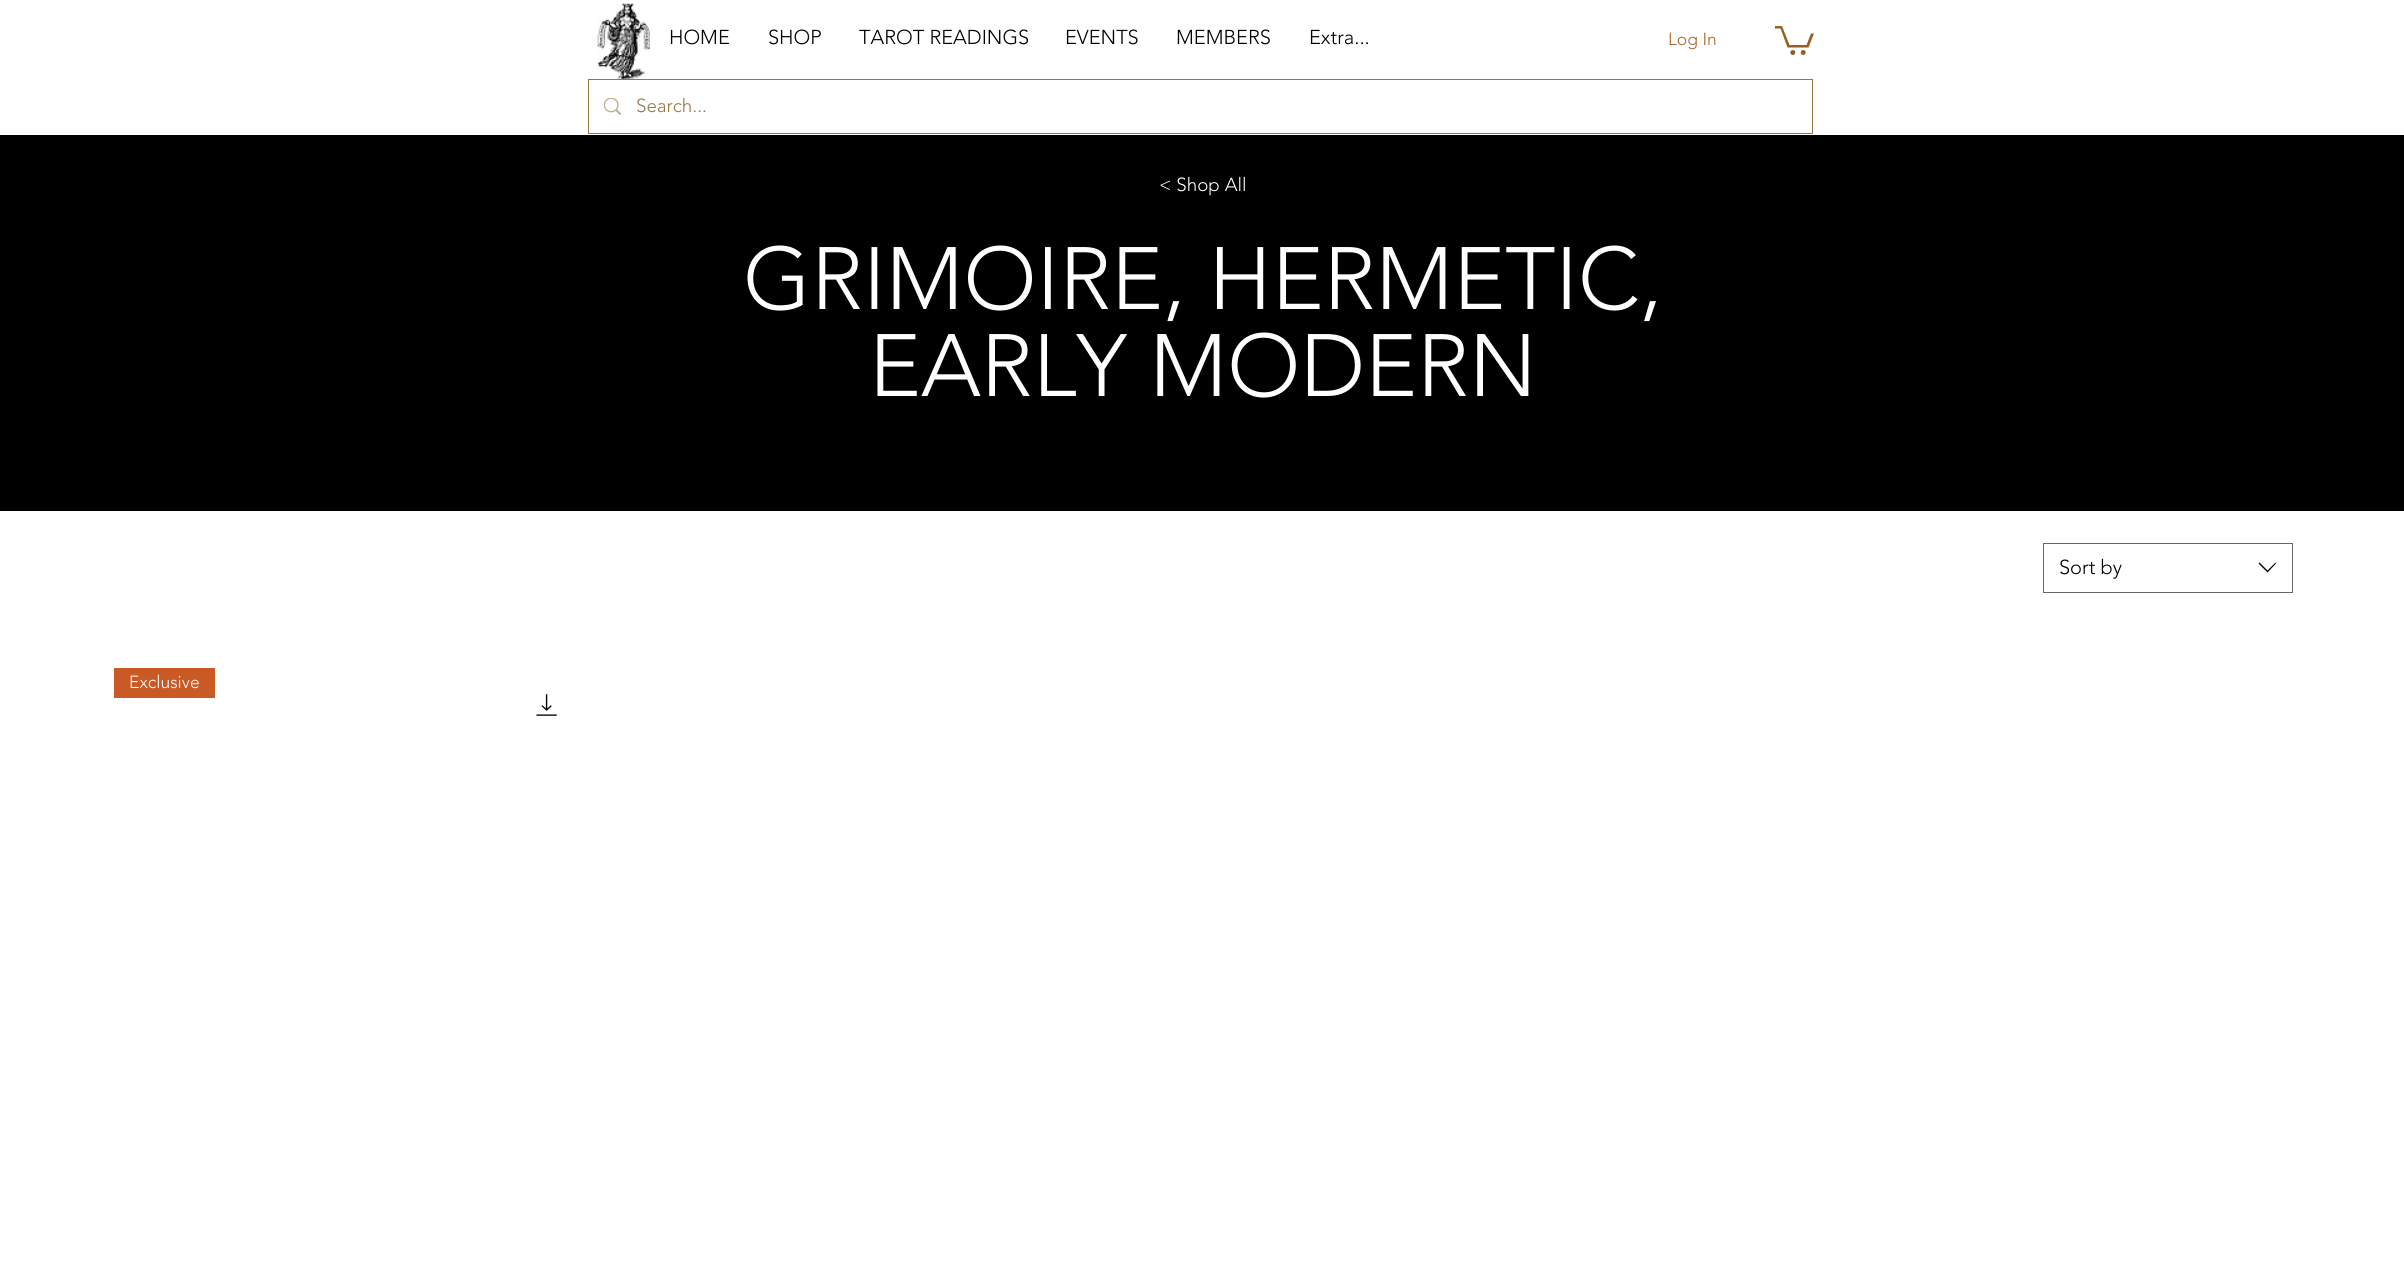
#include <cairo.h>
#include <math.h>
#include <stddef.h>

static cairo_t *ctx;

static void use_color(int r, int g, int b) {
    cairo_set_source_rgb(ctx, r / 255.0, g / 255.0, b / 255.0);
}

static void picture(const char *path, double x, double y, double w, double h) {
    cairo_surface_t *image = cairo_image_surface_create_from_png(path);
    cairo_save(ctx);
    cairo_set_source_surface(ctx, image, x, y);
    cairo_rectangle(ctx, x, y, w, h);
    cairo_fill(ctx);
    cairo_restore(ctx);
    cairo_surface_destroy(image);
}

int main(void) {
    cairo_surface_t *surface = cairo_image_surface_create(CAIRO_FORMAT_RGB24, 2404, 1288);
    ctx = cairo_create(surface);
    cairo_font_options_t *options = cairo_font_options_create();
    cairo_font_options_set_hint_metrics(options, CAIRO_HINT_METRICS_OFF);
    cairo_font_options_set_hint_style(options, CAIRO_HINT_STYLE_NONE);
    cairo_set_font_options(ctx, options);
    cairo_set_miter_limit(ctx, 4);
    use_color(255, 255, 255);
    cairo_paint(ctx);
    picture("img1.png", 597, 3, 53, 76);
    cairo_select_font_face(ctx, "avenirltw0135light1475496 Light", CAIRO_FONT_SLANT_NORMAL, CAIRO_FONT_WEIGHT_NORMAL);
    cairo_set_font_size(ctx, 20);
    use_color(0, 0, 0);
    cairo_move_to(ctx, 669, 44);
    cairo_show_text(ctx, "HOME");
    cairo_move_to(ctx, 768, 44);
    cairo_show_text(ctx, "SHOP");
    cairo_move_to(ctx, 859, 44);
    cairo_show_text(ctx, "TAROT READINGS");
    cairo_move_to(ctx, 1065, 44);
    cairo_show_text(ctx, "EVENTS");
    cairo_move_to(ctx, 1176, 44);
    cairo_show_text(ctx, "MEMBERS");
    cairo_move_to(ctx, 1309, 44);
    cairo_show_text(ctx, "Extra...");
    cairo_set_font_size(ctx, 17.5);
    use_color(167, 101, 40);
    cairo_move_to(ctx, 1668, 45);
    cairo_show_text(ctx, "Log In");
    use_color(151, 95, 34);
    cairo_new_path(ctx);
    cairo_move_to(ctx, 1814, 33.5);
    cairo_line_to(ctx, 1808.5, 47.5);
    cairo_line_to(ctx, 1787.5, 47.5);
    cairo_line_to(ctx, 1780.5, 28.5);
    cairo_line_to(ctx, 1775, 28.5);
    cairo_line_to(ctx, 1775, 26);
    cairo_line_to(ctx, 1782, 26);
    cairo_line_to(ctx, 1789.5, 45);
    cairo_line_to(ctx, 1806.5, 45);
    cairo_line_to(ctx, 1811, 33.5);
    cairo_fill(ctx);
    cairo_arc(ctx, 1803.2, 52.5, 2.5, 0, 2 * M_PI);
    cairo_fill(ctx);
    cairo_arc(ctx, 1792.8, 52.5, 2.5, 0, 2 * M_PI);
    cairo_fill(ctx);
    cairo_rectangle(ctx, 588.5, 79.5, 1224, 54);
    use_color(153, 117, 69);
    cairo_set_line_width(ctx, 1);
    cairo_stroke(ctx);
    picture("img2.png", 604, 98, 17, 17);
    cairo_set_font_size(ctx, 18.75);
    cairo_move_to(ctx, 636, 112);
    cairo_show_text(ctx, "Search...");
    use_color(0, 0, 0);
    cairo_rectangle(ctx, 0, 135, 2404, 376);
    cairo_fill(ctx);
    use_color(255, 255, 255);
    cairo_move_to(ctx, 1159, 191);
    cairo_show_text(ctx, "< Shop All");
    cairo_set_font_size(ctx, 87.5);
    cairo_move_to(ctx, 743, 309);
    cairo_show_text(ctx, "GRIMOIRE, HERMETIC,");
    cairo_move_to(ctx, 869, 396);
    cairo_show_text(ctx, "EARLY MODERN");
    cairo_rectangle(ctx, 2043.5, 543.5, 249, 49);
    use_color(102, 102, 102);
    cairo_stroke(ctx);
    cairo_set_font_size(ctx, 20);
    use_color(0, 0, 0);
    cairo_move_to(ctx, 2059, 574);
    cairo_show_text(ctx, "Sort by");
    cairo_set_fill_rule(ctx, CAIRO_FILL_RULE_EVEN_ODD);
    cairo_new_path(ctx);
    cairo_move_to(ctx, 2275.5, 562.5);
    cairo_line_to(ctx, 2276, 563.5);
    cairo_line_to(ctx, 2267.5, 572.5);
    cairo_line_to(ctx, 2258.5, 563.5);
    cairo_line_to(ctx, 2259.5, 562.5);
    cairo_line_to(ctx, 2267.5, 570.5);
    cairo_close_path(ctx);
    cairo_fill(ctx);
    use_color(201, 90, 38);
    cairo_rectangle(ctx, 114, 668, 101, 30);
    cairo_fill(ctx);
    cairo_set_font_size(ctx, 17.5);
    use_color(255, 255, 255);
    cairo_move_to(ctx, 129, 688);
    cairo_show_text(ctx, "Exclusive");
    picture("img3.png", 536, 694, 21, 22);
    cairo_surface_write_to_png(surface, "result.png");
    cairo_font_options_destroy(options);
    cairo_destroy(ctx);
    cairo_surface_destroy(surface);
    return 0;
}
